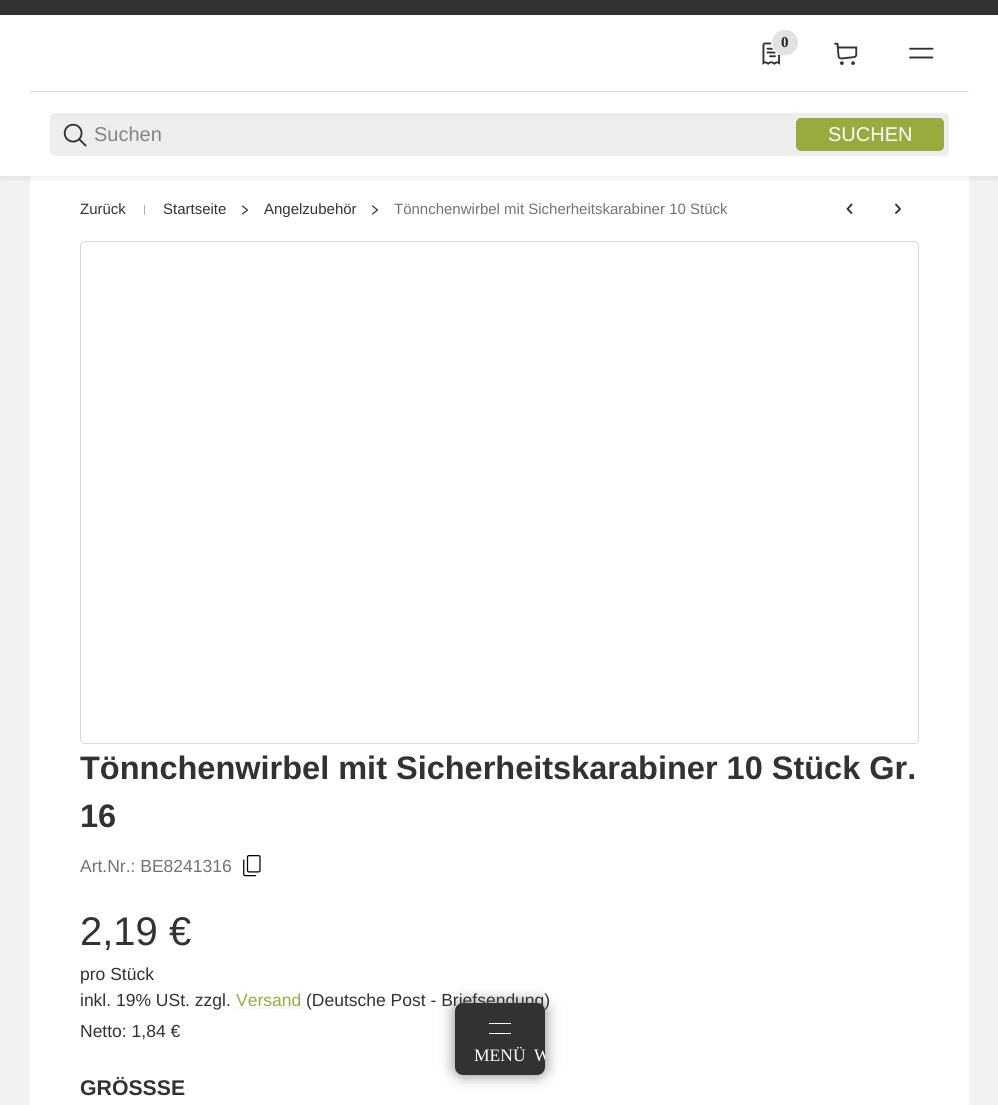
#include <cairo.h>
#include <math.h>
#include <stddef.h>

static cairo_t *ctx;

static void use_color(int r, int g, int b) {
    cairo_set_source_rgb(ctx, r / 255.0, g / 255.0, b / 255.0);
}

static void round_rect(double x, double y, double w, double h, double r) {
    cairo_new_sub_path(ctx);
    cairo_arc(ctx, x + w - r, y + h - r, r, 0, M_PI / 2);
    cairo_arc(ctx, x + r, y + h - r, r, M_PI / 2, M_PI);
    cairo_arc(ctx, x + r, y + r, r, M_PI, 1.5 * M_PI);
    cairo_arc(ctx, x + w - r, y + r, r, 1.5 * M_PI, 2 * M_PI);
    cairo_close_path(ctx);
}

static void shadow(double x, double y, double w, double h, double r, double blur, double alpha) {
    cairo_push_group_with_content(ctx, CAIRO_CONTENT_ALPHA);
    cairo_set_operator(ctx, CAIRO_OPERATOR_SOURCE);
    for (int i = 15; i >= -15 && fmin(w, h) + blur * i / 3 > 0; i -= 2) {
        double e = blur * i / 6;
        cairo_set_source_rgba(ctx, 0, 0, 0, alpha * erfc((i - 1) / 8.5) / 2);
        round_rect(x - e, y - e, w + 2 * e, h + 2 * e, fmax(0, fmin(r + e + blur * .6, fmin(w, h) / 2 + e)));
        cairo_fill(ctx);
    }
    cairo_pattern_t *soft = cairo_pop_group(ctx);
    cairo_mask(ctx, soft);
    cairo_pattern_destroy(soft);
}

static void picture(const char *path, double x, double y, double w, double h) {
    cairo_surface_t *image = cairo_image_surface_create_from_png(path);
    cairo_save(ctx);
    cairo_set_source_surface(ctx, image, x, y);
    cairo_rectangle(ctx, x, y, w, h);
    cairo_fill(ctx);
    cairo_restore(ctx);
    cairo_surface_destroy(image);
}

int main(void) {
    cairo_surface_t *surface = cairo_image_surface_create(CAIRO_FORMAT_RGB24, 998, 1105);
    ctx = cairo_create(surface);
    cairo_font_options_t *options = cairo_font_options_create();
    cairo_font_options_set_hint_metrics(options, CAIRO_HINT_METRICS_OFF);
    cairo_font_options_set_hint_style(options, CAIRO_HINT_STYLE_NONE);
    cairo_set_font_options(ctx, options);
    cairo_set_miter_limit(ctx, 4);
    use_color(242, 242, 242);
    cairo_paint(ctx);
    use_color(50, 50, 50);
    cairo_rectangle(ctx, 0, 0, 998, 15);
    cairo_fill(ctx);
    use_color(255, 255, 255);
    cairo_rectangle(ctx, 0, 15, 998, 161);
    cairo_fill(ctx);
    picture("img1.png", 762, 42, 18, 23);
    use_color(226, 226, 226);
    round_rect(771.5, 29.5, 27, 26, 13);
    cairo_fill_preserve(ctx);
    use_color(255, 255, 255);
    cairo_set_line_width(ctx, 1);
    cairo_stroke(ctx);
    cairo_select_font_face(ctx, "Liberation Serif", CAIRO_FONT_SLANT_NORMAL, CAIRO_FONT_WEIGHT_BOLD);
    cairo_set_font_size(ctx, 15);
    use_color(34, 34, 34);
    cairo_move_to(ctx, 781, 47);
    cairo_show_text(ctx, "0");
    picture("img2.png", 834, 42, 24, 23);
    picture("img3.png", 909, 47, 25, 12);
    use_color(215, 215, 215);
    cairo_rectangle(ctx, 30, 91, 939, 1);
    cairo_fill(ctx);
    use_color(237, 237, 237);
    round_rect(50, 113, 899, 43, 5);
    cairo_fill(ctx);
    picture("img4.png", 63, 123, 24, 24);
    cairo_select_font_face(ctx, "Liberation Sans", CAIRO_FONT_SLANT_NORMAL, CAIRO_FONT_WEIGHT_NORMAL);
    cairo_set_font_size(ctx, 20);
    use_color(132, 132, 132);
    cairo_move_to(ctx, 94, 141);
    cairo_show_text(ctx, "Suchen");
    use_color(152, 171, 63);
    round_rect(796.5, 118.5, 147, 32, 4.5);
    cairo_fill_preserve(ctx);
    cairo_stroke(ctx);
    use_color(255, 255, 255);
    cairo_move_to(ctx, 828, 141);
    cairo_show_text(ctx, "SUCHEN");
    cairo_rectangle(ctx, 30, 176, 939, 929);
    cairo_fill(ctx);
    cairo_save(ctx);
    cairo_rectangle(ctx, 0, 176, 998, 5);
    cairo_clip(ctx);
    use_color(0, 0, 0);
    shadow(0, 166, 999, 13, 0, 4, 0.07);
    cairo_restore(ctx);
    cairo_set_font_size(ctx, 15);
    use_color(50, 50, 50);
    cairo_move_to(ctx, 80, 214);
    cairo_show_text(ctx, "Zurück");
    use_color(177, 177, 177);
    cairo_rectangle(ctx, 144, 205, 1, 10);
    cairo_fill(ctx);
    use_color(50, 50, 50);
    cairo_move_to(ctx, 163, 214);
    cairo_show_text(ctx, "Startseite");
    cairo_new_path(ctx);
    cairo_move_to(ctx, 242.5, 214);
    cairo_line_to(ctx, 247.5, 210);
    cairo_line_to(ctx, 242.5, 206);
    cairo_set_line_width(ctx, 1.2);
    cairo_set_line_cap(ctx, CAIRO_LINE_CAP_ROUND);
    cairo_set_line_join(ctx, CAIRO_LINE_JOIN_ROUND);
    cairo_stroke(ctx);
    cairo_move_to(ctx, 264, 214);
    cairo_show_text(ctx, "Angelzubehör");
    cairo_new_path(ctx);
    cairo_move_to(ctx, 372.5, 214);
    cairo_line_to(ctx, 377.5, 210);
    cairo_line_to(ctx, 372.5, 206);
    cairo_stroke(ctx);
    use_color(114, 114, 114);
    cairo_move_to(ctx, 394, 214);
    cairo_show_text(ctx, "Tönnchenwirbel mit Sicherheitskarabiner 10 Stück");
    cairo_new_path(ctx);
    cairo_move_to(ctx, 851.5, 213);
    cairo_line_to(ctx, 847.5, 209);
    cairo_line_to(ctx, 851.5, 204.5);
    cairo_move_to(ctx, 896, 213);
    cairo_line_to(ctx, 900, 209);
    cairo_line_to(ctx, 896, 204.5);
    use_color(50, 50, 50);
    cairo_set_line_width(ctx, 1.9);
    cairo_stroke(ctx);
    round_rect(80.5, 241.5, 838, 502, 4.5);
    use_color(215, 215, 215);
    cairo_set_line_width(ctx, 1);
    cairo_set_line_cap(ctx, CAIRO_LINE_CAP_BUTT);
    cairo_set_line_join(ctx, CAIRO_LINE_JOIN_MITER);
    cairo_stroke(ctx);
    cairo_select_font_face(ctx, "Liberation Sans", CAIRO_FONT_SLANT_NORMAL, CAIRO_FONT_WEIGHT_BOLD);
    cairo_set_font_size(ctx, 32.5);
    use_color(50, 50, 50);
    cairo_move_to(ctx, 80, 779);
    cairo_show_text(ctx, "Tönnchenwirbel mit Sicherheitskarabiner 10 Stück Gr.");
    cairo_move_to(ctx, 80, 827);
    cairo_show_text(ctx, "16");
    cairo_select_font_face(ctx, "Liberation Sans", CAIRO_FONT_SLANT_NORMAL, CAIRO_FONT_WEIGHT_NORMAL);
    cairo_set_font_size(ctx, 17.5);
    use_color(114, 114, 114);
    cairo_move_to(ctx, 80, 872);
    cairo_show_text(ctx, "Art.Nr.: BE8241316");
    picture("img5.png", 243, 855, 18, 22);
    cairo_set_font_size(ctx, 40);
    use_color(50, 50, 50);
    cairo_move_to(ctx, 80, 945);
    cairo_show_text(ctx, "2,19 €");
    cairo_set_font_size(ctx, 17.5);
    cairo_move_to(ctx, 80, 980);
    cairo_show_text(ctx, "pro Stück");
    cairo_move_to(ctx, 80, 1006);
    cairo_show_text(ctx, "inkl. 19% USt. zzgl.");
    use_color(152, 171, 63);
    cairo_move_to(ctx, 236, 1006);
    cairo_show_text(ctx, "Versand");
    cairo_new_path(ctx);
    cairo_move_to(ctx, 235.5, 1008);
    cairo_line_to(ctx, 305.5, 1008);
    use_color(226, 226, 226);
    cairo_set_line_width(ctx, 1.2);
    cairo_set_dash(ctx, (double[]){1.25, 1.25}, 2, 0);
    cairo_stroke(ctx);
    use_color(0, 0, 0);
    shadow(455, 1003, 90, 72, 8, 7.5, 0.5);
    use_color(50, 50, 50);
    round_rect(455, 1003, 90, 72, 8);
    cairo_fill(ctx);
    cairo_move_to(ctx, 306, 1006);
    cairo_show_text(ctx, "(Deutsche Post - Briefsendung)");
    cairo_move_to(ctx, 80, 1037);
    cairo_show_text(ctx, "Netto: 1,84 €");
    cairo_select_font_face(ctx, "Liberation Sans", CAIRO_FONT_SLANT_NORMAL, CAIRO_FONT_WEIGHT_BOLD);
    cairo_set_font_size(ctx, 21.25);
    cairo_move_to(ctx, 80, 1095);
    cairo_show_text(ctx, "GRÖSSSE");
    use_color(255, 255, 255);
    cairo_rectangle(ctx, 489, 1023, 22, 1);
    cairo_fill(ctx);
    cairo_rectangle(ctx, 489, 1033, 22, 1);
    cairo_fill(ctx);
    cairo_select_font_face(ctx, "Liberation Serif", CAIRO_FONT_SLANT_NORMAL, CAIRO_FONT_WEIGHT_NORMAL);
    cairo_set_font_size(ctx, 17.5);
    cairo_move_to(ctx, 474, 1061);
    cairo_show_text(ctx, "MENÜ");
    cairo_save(ctx);
    round_rect(455, 1003, 90, 72, 8);
    cairo_clip(ctx);
    cairo_move_to(ctx, 534, 1061);
    cairo_show_text(ctx, "W");
    cairo_restore(ctx);
    cairo_surface_write_to_png(surface, "result.png");
    cairo_font_options_destroy(options);
    cairo_destroy(ctx);
    cairo_surface_destroy(surface);
    return 0;
}
